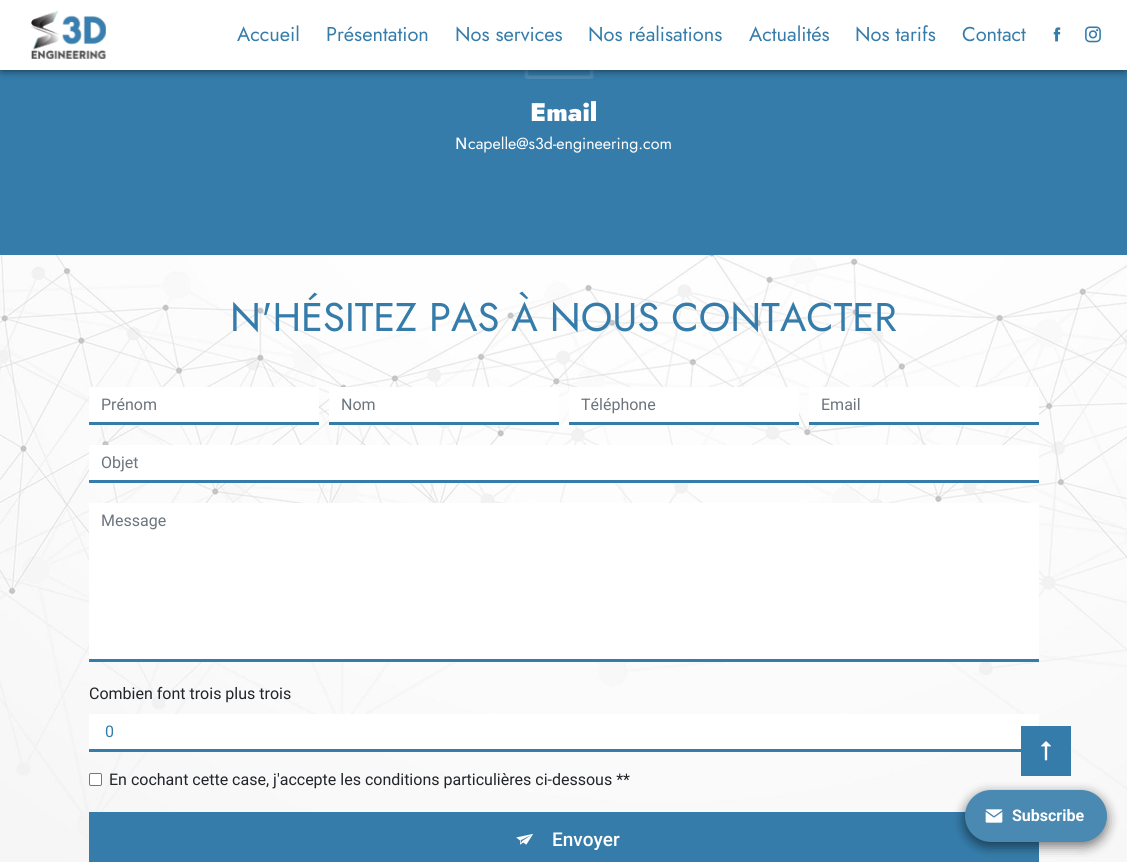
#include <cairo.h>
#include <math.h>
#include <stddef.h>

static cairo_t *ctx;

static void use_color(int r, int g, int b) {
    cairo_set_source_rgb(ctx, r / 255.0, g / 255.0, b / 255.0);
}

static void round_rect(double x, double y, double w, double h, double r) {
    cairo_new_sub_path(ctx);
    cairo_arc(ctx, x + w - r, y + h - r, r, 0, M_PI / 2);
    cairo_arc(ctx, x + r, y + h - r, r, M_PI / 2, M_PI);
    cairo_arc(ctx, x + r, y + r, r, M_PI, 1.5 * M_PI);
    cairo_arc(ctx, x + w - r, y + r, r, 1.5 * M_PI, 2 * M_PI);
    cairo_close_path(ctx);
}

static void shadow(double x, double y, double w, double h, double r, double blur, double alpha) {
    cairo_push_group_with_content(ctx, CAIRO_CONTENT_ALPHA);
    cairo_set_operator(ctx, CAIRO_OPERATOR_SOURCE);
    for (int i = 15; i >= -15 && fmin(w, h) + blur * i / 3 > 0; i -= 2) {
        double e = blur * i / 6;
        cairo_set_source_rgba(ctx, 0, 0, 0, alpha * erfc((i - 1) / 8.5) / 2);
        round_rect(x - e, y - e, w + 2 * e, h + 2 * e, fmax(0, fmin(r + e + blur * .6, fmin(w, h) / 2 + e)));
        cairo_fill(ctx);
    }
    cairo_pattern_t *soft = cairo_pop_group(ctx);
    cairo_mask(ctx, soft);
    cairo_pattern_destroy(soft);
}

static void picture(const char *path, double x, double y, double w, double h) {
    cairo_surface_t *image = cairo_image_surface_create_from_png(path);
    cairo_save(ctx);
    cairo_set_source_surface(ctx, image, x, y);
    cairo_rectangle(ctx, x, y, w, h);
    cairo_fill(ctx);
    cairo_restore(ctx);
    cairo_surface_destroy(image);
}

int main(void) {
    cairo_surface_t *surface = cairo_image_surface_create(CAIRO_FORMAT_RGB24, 1127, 862);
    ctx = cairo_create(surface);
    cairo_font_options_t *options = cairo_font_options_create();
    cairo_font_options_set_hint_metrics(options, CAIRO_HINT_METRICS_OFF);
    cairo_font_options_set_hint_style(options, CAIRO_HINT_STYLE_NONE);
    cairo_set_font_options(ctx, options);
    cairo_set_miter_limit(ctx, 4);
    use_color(255, 255, 255);
    cairo_paint(ctx);
    picture("img1.png", 0, 255, 1127, 607);
    use_color(53, 124, 170);
    cairo_rectangle(ctx, 0, 70, 1127, 185);
    cairo_fill(ctx);
    picture("img5.png", 524, 70, 70, 9);
    use_color(0, 0, 0);
    shadow(2, 2, 1123, 66, 0, 5, 1);
    use_color(255, 255, 255);
    cairo_rectangle(ctx, 0, 0, 1127, 70);
    cairo_fill(ctx);
    picture("img2.png", 31, 11, 75, 48);
    cairo_select_font_face(ctx, "Jost", CAIRO_FONT_SLANT_NORMAL, CAIRO_FONT_WEIGHT_NORMAL);
    cairo_set_font_size(ctx, 20);
    use_color(53, 124, 170);
    cairo_move_to(ctx, 237, 41);
    cairo_show_text(ctx, "Accueil");
    cairo_move_to(ctx, 326, 41);
    cairo_show_text(ctx, "Présentation");
    cairo_move_to(ctx, 455, 41);
    cairo_show_text(ctx, "Nos services");
    cairo_move_to(ctx, 588, 41);
    cairo_show_text(ctx, "Nos réalisations");
    cairo_move_to(ctx, 749, 41);
    cairo_show_text(ctx, "Actualités");
    cairo_move_to(ctx, 855, 41);
    cairo_show_text(ctx, "Nos tarifs");
    cairo_move_to(ctx, 962, 41);
    cairo_show_text(ctx, "Contact");
    picture("img3.png", 1053, 27, 8, 15);
    picture("img4.png", 1085, 26, 16, 17);
    cairo_select_font_face(ctx, "Jost Black", CAIRO_FONT_SLANT_NORMAL, CAIRO_FONT_WEIGHT_NORMAL);
    cairo_set_font_size(ctx, 25.5);
    use_color(255, 255, 255);
    cairo_move_to(ctx, 530, 121);
    cairo_show_text(ctx, "Email");
    cairo_select_font_face(ctx, "Noto Sans Medium", CAIRO_FONT_SLANT_NORMAL, CAIRO_FONT_WEIGHT_NORMAL);
    cairo_set_font_size(ctx, 16);
    cairo_move_to(ctx, 455, 149);
    cairo_show_text(ctx, "N");
    cairo_select_font_face(ctx, "Jost", CAIRO_FONT_SLANT_NORMAL, CAIRO_FONT_WEIGHT_NORMAL);
    cairo_move_to(ctx, 468, 149);
    cairo_show_text(ctx, "capelle@s3d-engineering.com");
    cairo_set_font_size(ctx, 40);
    use_color(53, 124, 170);
    cairo_move_to(ctx, 230, 331);
    cairo_show_text(ctx, "N'HÉSITEZ PAS À NOUS CONTACTER");
    use_color(255, 255, 255);
    cairo_rectangle(ctx, 89, 387, 230, 35);
    cairo_fill(ctx);
    use_color(53, 124, 170);
    cairo_rectangle(ctx, 89, 422, 230, 3);
    cairo_fill(ctx);
    cairo_select_font_face(ctx, "Roboto", CAIRO_FONT_SLANT_NORMAL, CAIRO_FONT_WEIGHT_NORMAL);
    cairo_set_font_size(ctx, 16);
    use_color(108, 117, 125);
    cairo_move_to(ctx, 101, 410);
    cairo_show_text(ctx, "Prénom");
    use_color(255, 255, 255);
    cairo_rectangle(ctx, 329, 387, 230, 35);
    cairo_fill(ctx);
    use_color(53, 124, 170);
    cairo_rectangle(ctx, 329, 422, 230, 3);
    cairo_fill(ctx);
    use_color(108, 117, 125);
    cairo_move_to(ctx, 341, 410);
    cairo_show_text(ctx, "Nom");
    use_color(255, 255, 255);
    cairo_rectangle(ctx, 569, 387, 230, 35);
    cairo_fill(ctx);
    use_color(53, 124, 170);
    cairo_rectangle(ctx, 569, 422, 230, 3);
    cairo_fill(ctx);
    use_color(108, 117, 125);
    cairo_move_to(ctx, 581, 410);
    cairo_show_text(ctx, "Téléphone");
    use_color(255, 255, 255);
    cairo_rectangle(ctx, 809, 387, 230, 35);
    cairo_fill(ctx);
    use_color(53, 124, 170);
    cairo_rectangle(ctx, 809, 422, 230, 3);
    cairo_fill(ctx);
    use_color(108, 117, 125);
    cairo_move_to(ctx, 821, 410);
    cairo_show_text(ctx, "Email");
    use_color(255, 255, 255);
    cairo_rectangle(ctx, 89, 445, 950, 35);
    cairo_fill(ctx);
    use_color(53, 124, 170);
    cairo_rectangle(ctx, 89, 480, 950, 3);
    cairo_fill(ctx);
    use_color(108, 117, 125);
    cairo_move_to(ctx, 101, 468);
    cairo_show_text(ctx, "Objet");
    use_color(255, 255, 255);
    cairo_rectangle(ctx, 89, 503, 950, 156);
    cairo_fill(ctx);
    use_color(53, 124, 170);
    cairo_rectangle(ctx, 89, 659, 950, 3);
    cairo_fill(ctx);
    use_color(108, 117, 125);
    cairo_move_to(ctx, 101, 526);
    cairo_show_text(ctx, "Message");
    use_color(33, 37, 41);
    cairo_move_to(ctx, 89, 699);
    cairo_show_text(ctx, "Combien font trois plus trois");
    use_color(255, 255, 255);
    cairo_rectangle(ctx, 89, 714, 950, 35);
    cairo_fill(ctx);
    use_color(53, 124, 170);
    cairo_rectangle(ctx, 89, 749, 932, 3);
    cairo_fill(ctx);
    cairo_move_to(ctx, 105, 737);
    cairo_show_text(ctx, "0");
    use_color(255, 255, 255);
    round_rect(89.5, 773.5, 12, 12, 1.5);
    cairo_fill_preserve(ctx);
    use_color(118, 118, 118);
    cairo_set_line_width(ctx, 1);
    cairo_stroke(ctx);
    use_color(33, 37, 41);
    cairo_move_to(ctx, 109, 785);
    cairo_show_text(ctx, "En cochant cette case, j'accepte les conditions particulières ci-dessous **");
    use_color(53, 124, 170);
    cairo_rectangle(ctx, 89, 812, 950, 50);
    cairo_fill(ctx);
    picture("img6.png", 516, 834, 17, 11);
    cairo_select_font_face(ctx, "Roboto Medium", CAIRO_FONT_SLANT_NORMAL, CAIRO_FONT_WEIGHT_NORMAL);
    cairo_set_font_size(ctx, 19);
    use_color(255, 255, 255);
    cairo_move_to(ctx, 552, 846);
    cairo_show_text(ctx, "Envoyer");
    use_color(53, 124, 170);
    cairo_rectangle(ctx, 1021, 726, 50, 50);
    cairo_fill(ctx);
    picture("img7.png", 1041, 741, 10, 20);
    use_color(0, 0, 0);
    shadow(965, 794, 142, 52, 26, 6, 0.3);
    shadow(965, 794, 142, 52, 26, 6, 0.3);
    use_color(73, 137, 178);
    round_rect(965, 790, 142, 52, 26);
    cairo_fill(ctx);
    picture("img8.png", 985, 809, 18, 14);
    cairo_select_font_face(ctx, "Roboto", CAIRO_FONT_SLANT_NORMAL, CAIRO_FONT_WEIGHT_BOLD);
    cairo_set_font_size(ctx, 16);
    use_color(255, 255, 255);
    cairo_move_to(ctx, 1012, 821);
    cairo_show_text(ctx, "Subscribe");
    cairo_surface_write_to_png(surface, "result.png");
    cairo_font_options_destroy(options);
    cairo_destroy(ctx);
    cairo_surface_destroy(surface);
    return 0;
}
